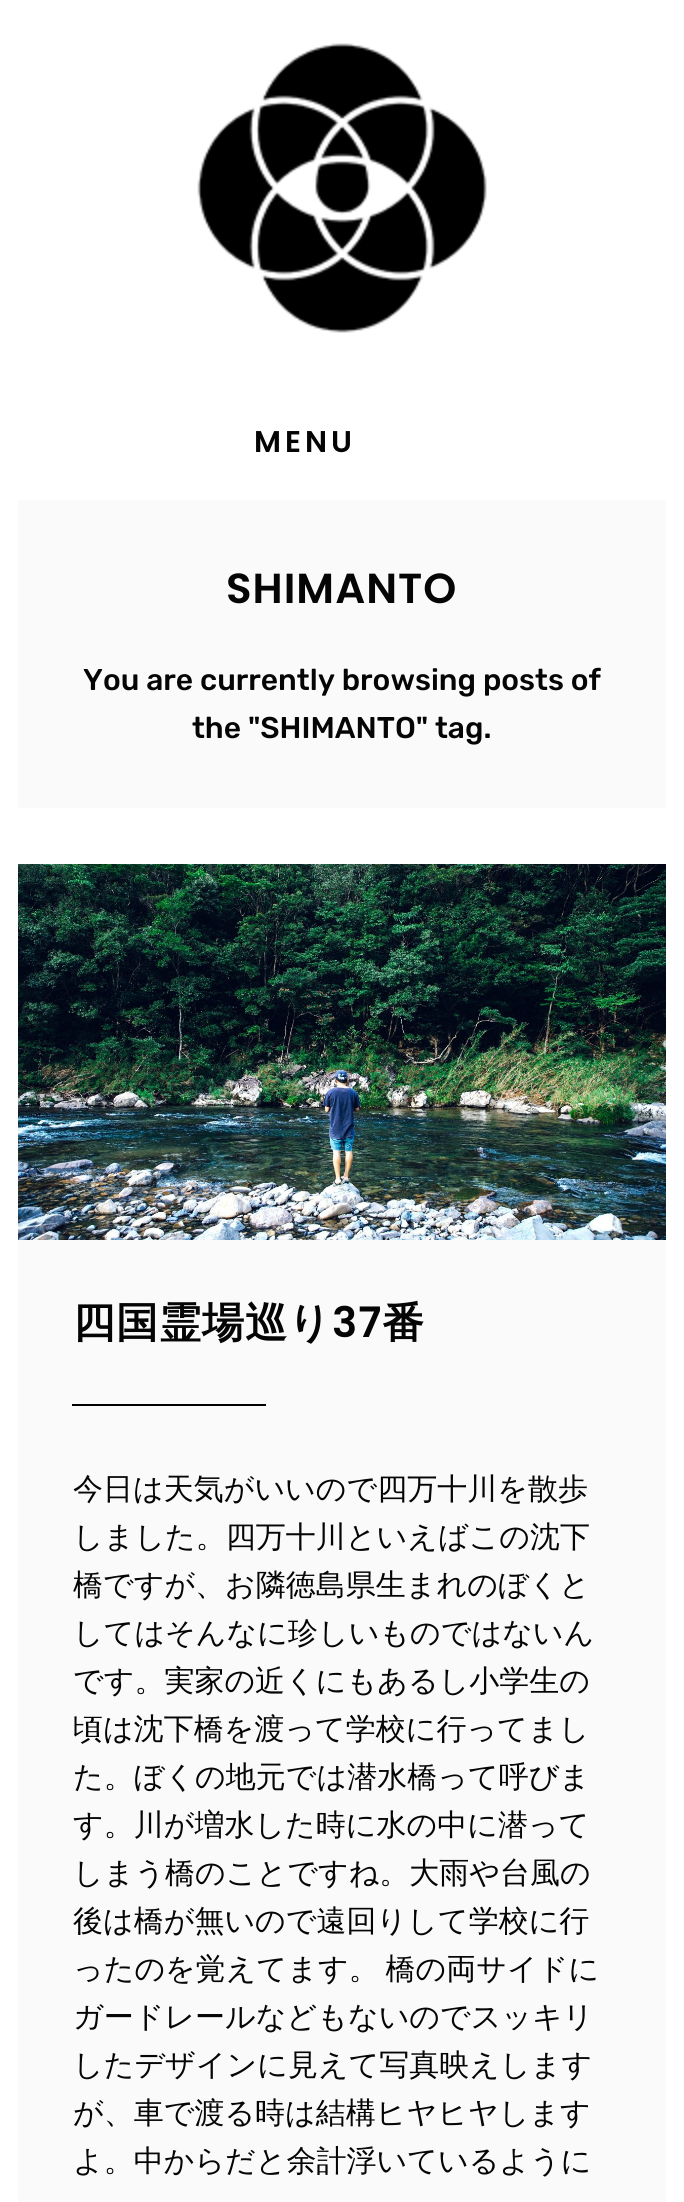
#include <cairo.h>
#include <math.h>
#include <stddef.h>

static cairo_t *ctx;

static void use_color(int r, int g, int b) {
    cairo_set_source_rgb(ctx, r / 255.0, g / 255.0, b / 255.0);
}

static void spaced_text(double x, double y, const char *s, double letter, double word) {
    cairo_move_to(ctx, x, y);
    while (*s) {
        char ch[5] = {0};
        int n = 0;
        do ch[n++] = *s++; while ((*s & 0xC0) == 0x80);
        cairo_show_text(ctx, ch);
        cairo_rel_move_to(ctx, letter + word * (*ch == ' '), 0);
    }
}

static void picture(const char *path, double x, double y, double w, double h) {
    cairo_surface_t *image = cairo_image_surface_create_from_png(path);
    cairo_save(ctx);
    cairo_set_source_surface(ctx, image, x, y);
    cairo_rectangle(ctx, x, y, w, h);
    cairo_fill(ctx);
    cairo_restore(ctx);
    cairo_surface_destroy(image);
}

int main(void) {
    cairo_surface_t *surface = cairo_image_surface_create(CAIRO_FORMAT_RGB24, 684, 2202);
    ctx = cairo_create(surface);
    cairo_font_options_t *options = cairo_font_options_create();
    cairo_font_options_set_hint_metrics(options, CAIRO_HINT_METRICS_OFF);
    cairo_font_options_set_hint_style(options, CAIRO_HINT_STYLE_NONE);
    cairo_set_font_options(ctx, options);
    cairo_set_miter_limit(ctx, 4);
    use_color(255, 255, 255);
    cairo_paint(ctx);
    picture("img1.png", 197, 43, 290, 290);
    cairo_select_font_face(ctx, "Poppins SemiBold", CAIRO_FONT_SLANT_NORMAL, CAIRO_FONT_WEIGHT_NORMAL);
    cairo_set_font_size(ctx, 30);
    use_color(5, 5, 5);
    spaced_text(254, 452, "MENU", 4, 0);
    use_color(250, 250, 250);
    cairo_rectangle(ctx, 18, 500, 648, 308);
    cairo_fill(ctx);
    cairo_set_font_size(ctx, 42);
    use_color(5, 5, 5);
    spaced_text(226, 603, "SHIMANTO", 1, 0);
    cairo_select_font_face(ctx, "Rubik Medium", CAIRO_FONT_SLANT_NORMAL, CAIRO_FONT_WEIGHT_NORMAL);
    cairo_set_font_size(ctx, 30);
    cairo_move_to(ctx, 83, 690);
    cairo_show_text(ctx, "You are currently browsing posts of");
    cairo_move_to(ctx, 192, 738);
    cairo_show_text(ctx, "the \"SHIMANTO\" tag.");
    use_color(250, 250, 250);
    cairo_rectangle(ctx, 18, 1240, 648, 962);
    cairo_fill(ctx);
    picture("img2.png", 18, 864, 648, 376);
    cairo_select_font_face(ctx, "WenQuanYi Zen Hei", CAIRO_FONT_SLANT_NORMAL, CAIRO_FONT_WEIGHT_BOLD);
    cairo_set_font_size(ctx, 42);
    use_color(5, 5, 5);
    spaced_text(73, 1337, "四国霊場巡り", 1, 0);
    cairo_select_font_face(ctx, "Poppins SemiBold", CAIRO_FONT_SLANT_NORMAL, CAIRO_FONT_WEIGHT_NORMAL);
    spaced_text(332, 1337, "37", 1, 0);
    cairo_select_font_face(ctx, "WenQuanYi Zen Hei", CAIRO_FONT_SLANT_NORMAL, CAIRO_FONT_WEIGHT_BOLD);
    spaced_text(382, 1337, "番", 1, 0);
    use_color(0, 0, 0);
    cairo_rectangle(ctx, 72, 1404, 194, 2);
    cairo_fill(ctx);
    cairo_select_font_face(ctx, "WenQuanYi Zen Hei Medium", CAIRO_FONT_SLANT_NORMAL, CAIRO_FONT_WEIGHT_NORMAL);
    cairo_set_font_size(ctx, 30);
    use_color(5, 5, 5);
    cairo_move_to(ctx, 73, 1499);
    cairo_show_text(ctx, "今日は天気がいいので四万十川を散歩");
    cairo_move_to(ctx, 73, 1547);
    cairo_show_text(ctx, "しました。四万十川といえばこの沈下");
    cairo_move_to(ctx, 73, 1595);
    cairo_show_text(ctx, "橋ですが、お隣徳島県生まれのぼくと");
    cairo_move_to(ctx, 73, 1643);
    cairo_show_text(ctx, "してはそんなに珍しいものではないん");
    cairo_move_to(ctx, 73, 1691);
    cairo_show_text(ctx, "です。実家の近くにもあるし小学生の");
    cairo_move_to(ctx, 73, 1739);
    cairo_show_text(ctx, "頃は沈下橋を渡って学校に行ってまし");
    cairo_move_to(ctx, 73, 1787);
    cairo_show_text(ctx, "た。ぼくの地元では潜水橋って呼びま");
    cairo_move_to(ctx, 73, 1835);
    cairo_show_text(ctx, "す。川が増水した時に水の中に潜って");
    cairo_move_to(ctx, 73, 1883);
    cairo_show_text(ctx, "しまう橋のことですね。大雨や台風の");
    cairo_move_to(ctx, 73, 1931);
    cairo_show_text(ctx, "後は橋が無いので遠回りして学校に行");
    spaced_text(73, 1979, "ったのを覚えてます。 橋の両サイドに", 0, -2);
    cairo_move_to(ctx, 73, 2027);
    cairo_show_text(ctx, "ガードレールなどもないのでスッキリ");
    cairo_move_to(ctx, 73, 2075);
    cairo_show_text(ctx, "したデザインに見えて写真映えします");
    cairo_move_to(ctx, 73, 2123);
    cairo_show_text(ctx, "が、車で渡る時は結構ヒヤヒヤします");
    cairo_move_to(ctx, 73, 2171);
    cairo_show_text(ctx, "よ。中からだと余計浮いているように");
    cairo_surface_write_to_png(surface, "result.png");
    cairo_font_options_destroy(options);
    cairo_destroy(ctx);
    cairo_surface_destroy(surface);
    return 0;
}
